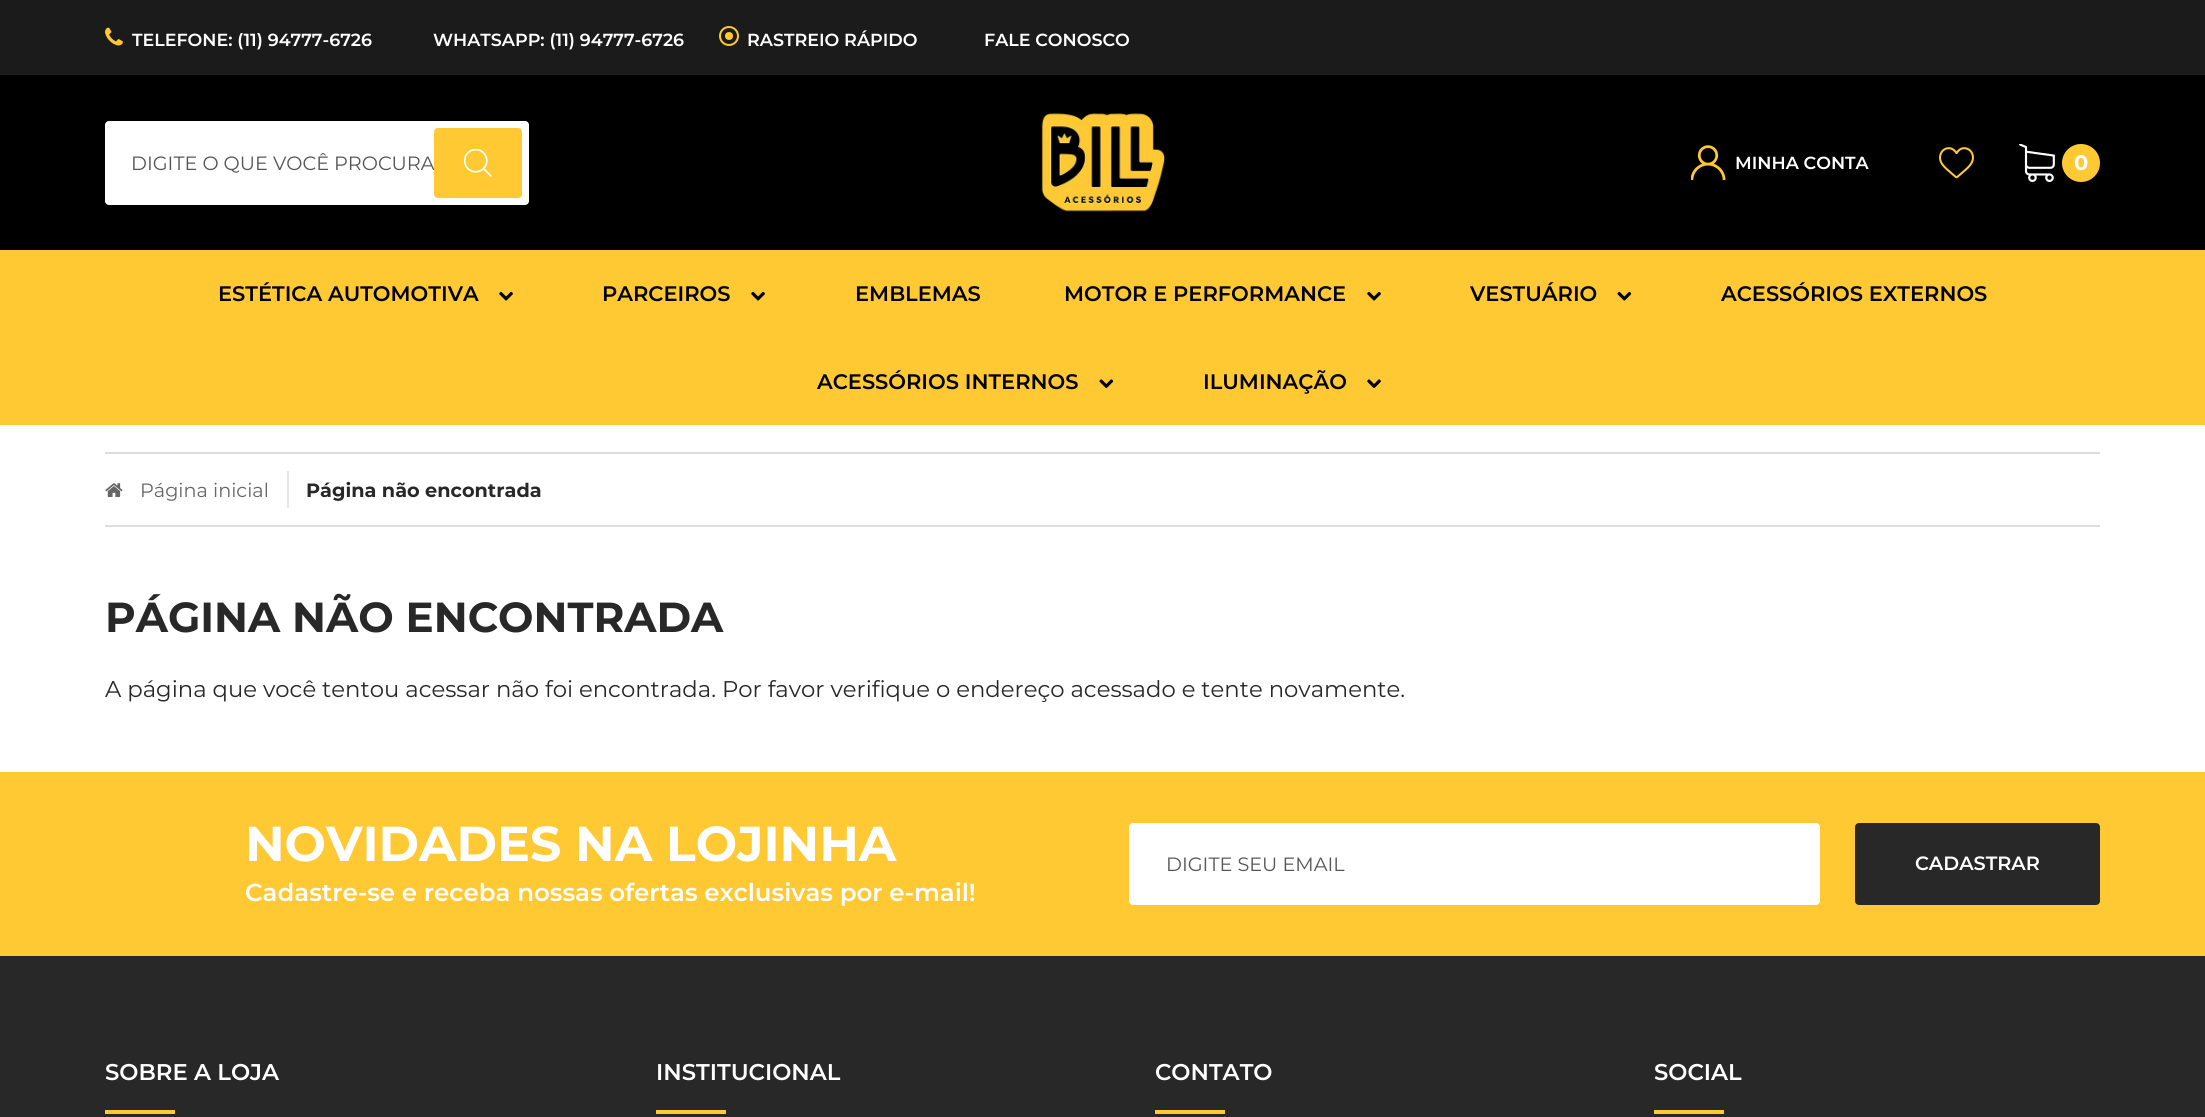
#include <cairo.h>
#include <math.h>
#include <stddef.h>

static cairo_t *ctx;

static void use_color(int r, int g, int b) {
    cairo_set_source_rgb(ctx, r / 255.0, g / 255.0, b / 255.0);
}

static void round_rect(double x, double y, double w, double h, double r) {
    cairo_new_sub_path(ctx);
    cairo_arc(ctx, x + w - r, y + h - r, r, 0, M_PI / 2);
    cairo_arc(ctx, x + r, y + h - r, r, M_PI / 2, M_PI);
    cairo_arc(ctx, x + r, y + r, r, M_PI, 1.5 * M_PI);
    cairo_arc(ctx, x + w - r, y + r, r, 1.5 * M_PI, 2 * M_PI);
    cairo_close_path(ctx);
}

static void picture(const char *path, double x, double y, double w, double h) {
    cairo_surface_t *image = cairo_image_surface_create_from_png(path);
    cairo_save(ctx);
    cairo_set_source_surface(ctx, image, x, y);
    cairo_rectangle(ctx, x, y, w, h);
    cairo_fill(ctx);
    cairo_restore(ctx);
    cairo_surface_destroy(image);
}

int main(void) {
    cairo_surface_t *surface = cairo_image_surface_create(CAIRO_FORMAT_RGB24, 2205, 1117);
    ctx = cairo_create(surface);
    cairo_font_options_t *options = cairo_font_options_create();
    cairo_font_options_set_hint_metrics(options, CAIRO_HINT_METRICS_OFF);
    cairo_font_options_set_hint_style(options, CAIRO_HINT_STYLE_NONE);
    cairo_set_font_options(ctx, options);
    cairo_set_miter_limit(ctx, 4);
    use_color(255, 255, 255);
    cairo_paint(ctx);
    use_color(0, 0, 0);
    cairo_rectangle(ctx, 0, 75, 2205, 175);
    cairo_fill(ctx);
    use_color(27, 27, 27);
    cairo_rectangle(ctx, 0, 0, 2205, 75);
    cairo_fill(ctx);
    picture("img1.png", 105, 27, 18, 19);
    cairo_select_font_face(ctx, "Montserrat SemiBold", CAIRO_FONT_SLANT_NORMAL, CAIRO_FONT_WEIGHT_NORMAL);
    cairo_set_font_size(ctx, 17.5);
    use_color(255, 255, 255);
    cairo_move_to(ctx, 132, 46);
    cairo_show_text(ctx, "TELEFONE: (11) 94777-6726");
    cairo_move_to(ctx, 433, 46);
    cairo_show_text(ctx, "WHATSAPP: (11) 94777-6726");
    cairo_new_path(ctx);
    cairo_arc(ctx, 729, 36, 9, 0, 2 * M_PI);
    use_color(255, 201, 52);
    cairo_stroke(ctx);
    cairo_arc(ctx, 729, 36, 4, 0, 2 * M_PI);
    cairo_fill(ctx);
    use_color(255, 255, 255);
    cairo_move_to(ctx, 747, 46);
    cairo_show_text(ctx, "RASTREIO RÁPIDO");
    cairo_move_to(ctx, 984, 46);
    cairo_show_text(ctx, "FALE CONOSCO");
    round_rect(105, 121, 424, 84, 4);
    cairo_fill(ctx);
    cairo_select_font_face(ctx, "Montserrat", CAIRO_FONT_SLANT_NORMAL, CAIRO_FONT_WEIGHT_NORMAL);
    cairo_set_font_size(ctx, 19.25);
    use_color(85, 85, 85);
    cairo_move_to(ctx, 131, 170);
    cairo_show_text(ctx, "DIGITE O QUE VOCÊ PROCURA");
    use_color(255, 201, 52);
    round_rect(434, 128, 88, 70, 4);
    cairo_fill(ctx);
    picture("img2.png", 464, 149, 28, 28);
    picture("img3.png", 1041, 113, 124, 99);
    picture("img4.png", 1691, 145, 35, 35);
    cairo_select_font_face(ctx, "Montserrat SemiBold", CAIRO_FONT_SLANT_NORMAL, CAIRO_FONT_WEIGHT_NORMAL);
    cairo_set_font_size(ctx, 17.5);
    use_color(255, 255, 255);
    cairo_move_to(ctx, 1735, 169);
    cairo_show_text(ctx, "MINHA CONTA");
    picture("img5.png", 1939, 147, 35, 32);
    picture("img6.png", 2019, 144, 36, 38);
    use_color(255, 201, 52);
    cairo_arc(ctx, 2081, 163, 19, 0, 2 * M_PI);
    cairo_fill(ctx);
    cairo_select_font_face(ctx, "Montserrat", CAIRO_FONT_SLANT_NORMAL, CAIRO_FONT_WEIGHT_BOLD);
    cairo_set_font_size(ctx, 21);
    use_color(255, 255, 255);
    cairo_move_to(ctx, 2074, 170);
    cairo_show_text(ctx, "0");
    use_color(255, 201, 52);
    cairo_rectangle(ctx, 0, 250, 2205, 175);
    cairo_fill(ctx);
    cairo_select_font_face(ctx, "Montserrat SemiBold", CAIRO_FONT_SLANT_NORMAL, CAIRO_FONT_WEIGHT_NORMAL);
    use_color(0, 0, 0);
    cairo_move_to(ctx, 218, 301);
    cairo_show_text(ctx, "ESTÉTICA AUTOMOTIVA");
    picture("img7.png", 499, 291, 14, 10);
    cairo_move_to(ctx, 602, 301);
    cairo_show_text(ctx, "PARCEIROS");
    picture("img7.png", 751, 291, 14, 10);
    cairo_move_to(ctx, 855, 301);
    cairo_show_text(ctx, "EMBLEMAS");
    cairo_move_to(ctx, 1064, 301);
    cairo_show_text(ctx, "MOTOR E PERFORMANCE");
    picture("img7.png", 1367, 291, 14, 10);
    cairo_move_to(ctx, 1470, 301);
    cairo_show_text(ctx, "VESTUÁRIO");
    picture("img8.png", 1617, 291, 15, 10);
    cairo_move_to(ctx, 1721, 301);
    cairo_show_text(ctx, "ACESSÓRIOS EXTERNOS");
    cairo_move_to(ctx, 817, 389);
    cairo_show_text(ctx, "ACESSÓRIOS INTERNOS");
    picture("img9.png", 1099, 379, 15, 9);
    cairo_move_to(ctx, 1203, 389);
    cairo_show_text(ctx, "ILUMINAÇÃO");
    picture("img10.png", 1367, 379, 14, 9);
    use_color(221, 221, 221);
    cairo_rectangle(ctx, 105, 452, 1995, 2);
    cairo_fill(ctx);
    cairo_rectangle(ctx, 105, 525, 1995, 2);
    cairo_fill(ctx);
    picture("img11.png", 105, 483, 18, 14);
    cairo_select_font_face(ctx, "Montserrat", CAIRO_FONT_SLANT_NORMAL, CAIRO_FONT_WEIGHT_NORMAL);
    cairo_set_font_size(ctx, 19.25);
    use_color(102, 102, 102);
    cairo_move_to(ctx, 140, 497);
    cairo_show_text(ctx, "Página inicial");
    use_color(230, 230, 230);
    cairo_rectangle(ctx, 287, 471, 2, 37);
    cairo_fill(ctx);
    cairo_select_font_face(ctx, "Montserrat", CAIRO_FONT_SLANT_NORMAL, CAIRO_FONT_WEIGHT_BOLD);
    use_color(40, 40, 40);
    cairo_move_to(ctx, 306, 497);
    cairo_show_text(ctx, "Página não encontrada");
    cairo_set_font_size(ctx, 42);
    cairo_move_to(ctx, 105, 632);
    cairo_show_text(ctx, "PÁGINA NÃO ENCONTRADA");
    cairo_select_font_face(ctx, "Montserrat", CAIRO_FONT_SLANT_NORMAL, CAIRO_FONT_WEIGHT_NORMAL);
    cairo_set_font_size(ctx, 22.75);
    cairo_move_to(ctx, 105, 697);
    cairo_show_text(ctx, "A página que você tentou acessar não foi encontrada. Por favor verifique o endereço acessado e tente novamente.");
    use_color(255, 201, 52);
    cairo_rectangle(ctx, 0, 772, 2205, 184);
    cairo_fill(ctx);
    cairo_select_font_face(ctx, "Montserrat", CAIRO_FONT_SLANT_NORMAL, CAIRO_FONT_WEIGHT_BOLD);
    cairo_set_font_size(ctx, 49);
    use_color(255, 255, 255);
    cairo_move_to(ctx, 245, 861);
    cairo_show_text(ctx, "NOVIDADES NA LOJINHA");
    cairo_select_font_face(ctx, "Montserrat SemiBold", CAIRO_FONT_SLANT_NORMAL, CAIRO_FONT_WEIGHT_NORMAL);
    cairo_set_font_size(ctx, 24.5);
    cairo_move_to(ctx, 245, 901);
    cairo_show_text(ctx, "Cadastre-se e receba nossas ofertas exclusivas por e-mail!");
    round_rect(1129, 823, 691, 82, 4);
    cairo_fill(ctx);
    cairo_select_font_face(ctx, "Montserrat", CAIRO_FONT_SLANT_NORMAL, CAIRO_FONT_WEIGHT_NORMAL);
    cairo_set_font_size(ctx, 19.25);
    use_color(85, 85, 85);
    cairo_move_to(ctx, 1166, 871);
    cairo_show_text(ctx, "DIGITE SEU EMAIL");
    use_color(40, 40, 40);
    round_rect(1857, 825, 241, 78, 2);
    cairo_fill_preserve(ctx);
    cairo_set_line_width(ctx, 4);
    cairo_stroke(ctx);
    cairo_select_font_face(ctx, "Montserrat SemiBold", CAIRO_FONT_SLANT_NORMAL, CAIRO_FONT_WEIGHT_NORMAL);
    use_color(255, 255, 255);
    cairo_move_to(ctx, 1915, 870);
    cairo_show_text(ctx, "CADASTRAR");
    use_color(40, 40, 40);
    cairo_rectangle(ctx, 0, 956, 2205, 161);
    cairo_fill(ctx);
    cairo_set_font_size(ctx, 22.75);
    use_color(255, 255, 255);
    cairo_move_to(ctx, 105, 1080);
    cairo_show_text(ctx, "SOBRE A LOJA");
    use_color(255, 201, 52);
    cairo_rectangle(ctx, 105, 1110, 70, 4);
    cairo_fill(ctx);
    use_color(255, 255, 255);
    cairo_move_to(ctx, 656, 1080);
    cairo_show_text(ctx, "INSTITUCIONAL");
    use_color(255, 201, 52);
    cairo_rectangle(ctx, 656, 1110, 70, 4);
    cairo_fill(ctx);
    use_color(255, 255, 255);
    cairo_move_to(ctx, 1155, 1080);
    cairo_show_text(ctx, "CONTATO");
    use_color(255, 201, 52);
    cairo_rectangle(ctx, 1155, 1110, 70, 4);
    cairo_fill(ctx);
    use_color(255, 255, 255);
    cairo_move_to(ctx, 1654, 1080);
    cairo_show_text(ctx, "SOCIAL");
    use_color(255, 201, 52);
    cairo_rectangle(ctx, 1654, 1110, 70, 4);
    cairo_fill(ctx);
    cairo_surface_write_to_png(surface, "result.png");
    cairo_font_options_destroy(options);
    cairo_destroy(ctx);
    cairo_surface_destroy(surface);
    return 0;
}
